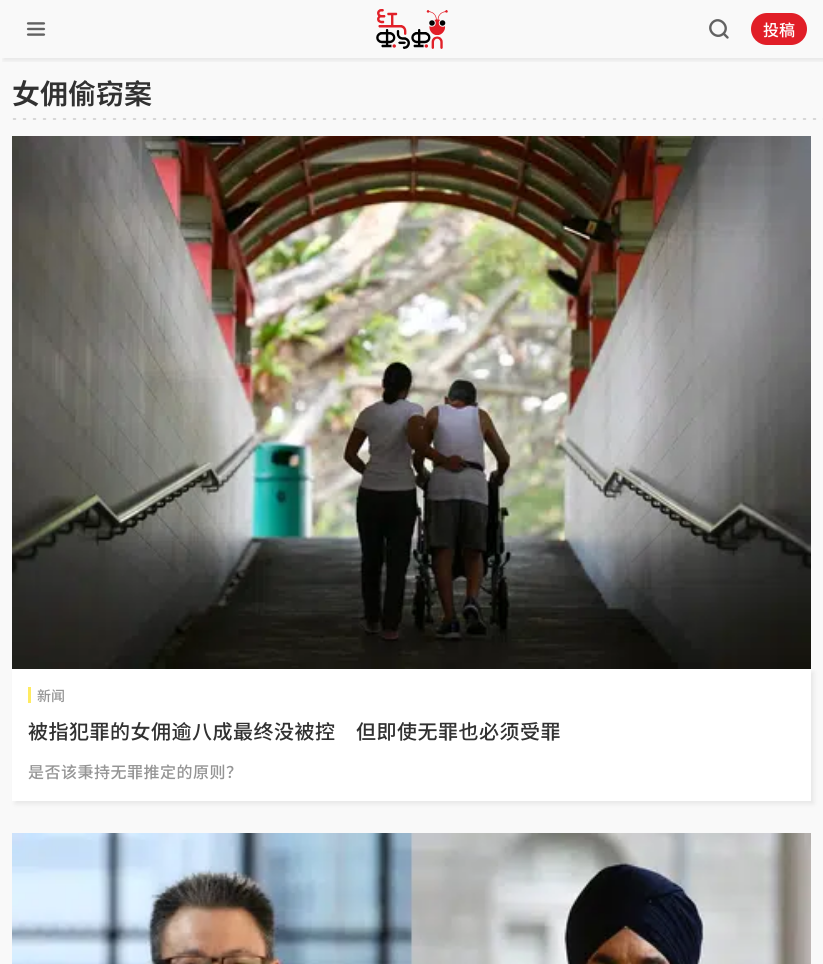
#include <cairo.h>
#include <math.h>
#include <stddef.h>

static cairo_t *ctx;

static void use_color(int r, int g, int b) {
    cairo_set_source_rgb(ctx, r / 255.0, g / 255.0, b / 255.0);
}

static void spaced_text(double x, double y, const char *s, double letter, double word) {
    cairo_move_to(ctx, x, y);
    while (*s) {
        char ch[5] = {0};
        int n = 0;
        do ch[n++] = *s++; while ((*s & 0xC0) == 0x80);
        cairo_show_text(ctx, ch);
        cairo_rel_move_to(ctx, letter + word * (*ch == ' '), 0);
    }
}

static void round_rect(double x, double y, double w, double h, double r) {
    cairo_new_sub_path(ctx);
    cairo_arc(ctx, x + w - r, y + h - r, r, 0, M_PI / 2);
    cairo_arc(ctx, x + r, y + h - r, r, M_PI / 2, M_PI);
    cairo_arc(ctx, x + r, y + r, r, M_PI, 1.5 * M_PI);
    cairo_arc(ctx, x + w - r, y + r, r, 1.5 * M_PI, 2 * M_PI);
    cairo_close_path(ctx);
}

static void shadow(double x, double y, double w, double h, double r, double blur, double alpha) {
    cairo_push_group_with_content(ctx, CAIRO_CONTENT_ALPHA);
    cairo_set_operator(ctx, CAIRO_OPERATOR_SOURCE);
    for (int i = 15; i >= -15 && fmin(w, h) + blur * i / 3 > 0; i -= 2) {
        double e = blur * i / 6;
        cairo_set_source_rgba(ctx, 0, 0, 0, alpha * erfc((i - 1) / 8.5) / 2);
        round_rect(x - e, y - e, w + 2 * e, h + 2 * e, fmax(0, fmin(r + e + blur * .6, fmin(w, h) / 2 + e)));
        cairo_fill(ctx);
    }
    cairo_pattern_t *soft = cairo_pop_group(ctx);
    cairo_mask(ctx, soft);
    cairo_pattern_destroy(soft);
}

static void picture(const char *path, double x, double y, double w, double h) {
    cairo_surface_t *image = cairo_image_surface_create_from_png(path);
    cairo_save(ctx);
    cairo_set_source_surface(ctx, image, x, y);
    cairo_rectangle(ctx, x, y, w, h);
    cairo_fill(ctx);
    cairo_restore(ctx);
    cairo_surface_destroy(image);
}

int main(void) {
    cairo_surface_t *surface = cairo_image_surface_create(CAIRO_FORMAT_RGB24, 823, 964);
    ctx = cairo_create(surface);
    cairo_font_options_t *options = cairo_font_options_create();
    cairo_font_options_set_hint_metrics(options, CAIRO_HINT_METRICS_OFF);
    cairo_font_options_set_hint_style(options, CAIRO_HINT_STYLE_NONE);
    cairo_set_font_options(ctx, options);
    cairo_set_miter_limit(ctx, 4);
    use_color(249, 249, 249);
    cairo_paint(ctx);
    cairo_save(ctx);
    cairo_rectangle(ctx, 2, 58, 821, 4);
    cairo_clip(ctx);
    use_color(0, 0, 0);
    shadow(3, 3, 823, 58, 0, 2.5, 0.07);
    cairo_restore(ctx);
    picture("img1.png", 26, 22, 20, 14);
    picture("img2.png", 376, 9, 72, 40);
    cairo_new_path(ctx);
    cairo_move_to(ctx, 727.5, 37.5);
    cairo_line_to(ctx, 723.5, 33.5);
    cairo_move_to(ctx, 723.5, 33.5);
    cairo_curve_to(ctx, 730.5, 26.5, 719.5, 15.5, 712.5, 22.5);
    cairo_curve_to(ctx, 705.5, 30, 716.5, 40.5, 723.5, 33.5);
    cairo_close_path(ctx);
    use_color(98, 98, 98);
    cairo_set_line_width(ctx, 2.4);
    cairo_set_line_cap(ctx, CAIRO_LINE_CAP_ROUND);
    cairo_set_line_join(ctx, CAIRO_LINE_JOIN_ROUND);
    cairo_stroke(ctx);
    use_color(225, 30, 39);
    round_rect(751, 13, 56, 32, 16);
    cairo_fill(ctx);
    cairo_select_font_face(ctx, "Noto Sans SC Medium", CAIRO_FONT_SLANT_NORMAL, CAIRO_FONT_WEIGHT_NORMAL);
    cairo_set_font_size(ctx, 16);
    use_color(255, 255, 255);
    cairo_move_to(ctx, 763, 36);
    cairo_show_text(ctx, "投稿");
    cairo_select_font_face(ctx, "Noto Sans SC SemiBold", CAIRO_FONT_SLANT_NORMAL, CAIRO_FONT_WEIGHT_NORMAL);
    cairo_set_font_size(ctx, 28);
    use_color(49, 49, 49);
    cairo_move_to(ctx, 12, 104);
    cairo_show_text(ctx, "女佣偷窃案");
    cairo_new_path(ctx);
    cairo_move_to(ctx, 13.5, 119);
    cairo_line_to(ctx, 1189.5, 119);
    use_color(202, 202, 202);
    cairo_set_line_width(ctx, 1.5);
    cairo_set_line_join(ctx, CAIRO_LINE_JOIN_MITER);
    cairo_set_dash(ctx, (double[]){2, 8}, 2, 0);
    cairo_stroke(ctx);
    use_color(0, 0, 0);
    shadow(15, 672, 799, 132, 0, 2.5, 0.07);
    picture("img3.png", 12, 136, 799, 533);
    use_color(255, 255, 255);
    cairo_rectangle(ctx, 12, 669, 799, 132);
    cairo_fill(ctx);
    use_color(255, 235, 97);
    cairo_rectangle(ctx, 28, 687, 3, 16);
    cairo_fill(ctx);
    cairo_select_font_face(ctx, "Noto Sans SC Medium", CAIRO_FONT_SLANT_NORMAL, CAIRO_FONT_WEIGHT_NORMAL);
    cairo_set_font_size(ctx, 14);
    use_color(149, 149, 149);
    cairo_move_to(ctx, 37, 701);
    cairo_show_text(ctx, "新闻");
    cairo_set_font_size(ctx, 20);
    use_color(49, 49, 49);
    spaced_text(28, 739, "被指犯罪的女佣逾八成最终没被控　但即使无罪也必须受罪", 0.5, 0);
    cairo_set_font_size(ctx, 16);
    use_color(149, 149, 149);
    spaced_text(28, 778, "是否该秉持无罪推定的原则？", 0.5, 0);
    picture("img4.png", 12, 833, 799, 131);
    cairo_surface_write_to_png(surface, "result.png");
    cairo_font_options_destroy(options);
    cairo_destroy(ctx);
    cairo_surface_destroy(surface);
    return 0;
}
